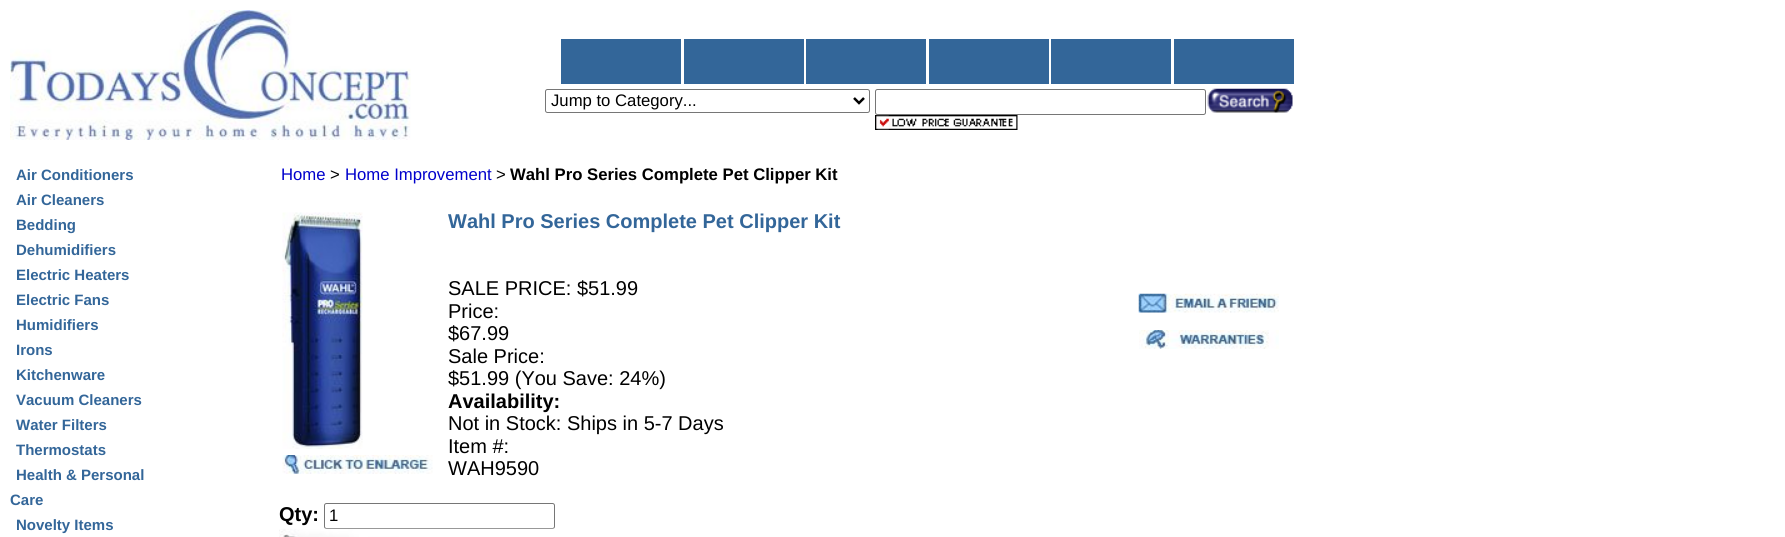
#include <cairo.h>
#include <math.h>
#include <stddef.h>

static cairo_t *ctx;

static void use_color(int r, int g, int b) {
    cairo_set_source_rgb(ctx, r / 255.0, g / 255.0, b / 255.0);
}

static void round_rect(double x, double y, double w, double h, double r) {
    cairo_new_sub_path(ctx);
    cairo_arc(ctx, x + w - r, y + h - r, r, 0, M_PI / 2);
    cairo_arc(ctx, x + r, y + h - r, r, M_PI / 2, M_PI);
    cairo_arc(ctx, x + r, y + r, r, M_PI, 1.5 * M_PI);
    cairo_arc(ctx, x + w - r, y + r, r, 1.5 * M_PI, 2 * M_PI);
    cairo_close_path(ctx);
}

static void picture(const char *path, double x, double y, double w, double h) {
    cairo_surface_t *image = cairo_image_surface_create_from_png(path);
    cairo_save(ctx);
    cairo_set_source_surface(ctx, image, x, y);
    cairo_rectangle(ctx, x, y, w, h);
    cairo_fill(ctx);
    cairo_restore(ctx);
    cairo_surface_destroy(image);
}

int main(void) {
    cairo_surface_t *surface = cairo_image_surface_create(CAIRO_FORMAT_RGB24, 1785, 537);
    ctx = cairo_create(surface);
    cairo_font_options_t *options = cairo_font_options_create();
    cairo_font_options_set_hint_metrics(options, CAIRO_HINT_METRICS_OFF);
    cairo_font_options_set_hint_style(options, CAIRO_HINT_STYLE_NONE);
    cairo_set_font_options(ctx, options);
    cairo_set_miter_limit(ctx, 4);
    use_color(255, 255, 255);
    cairo_paint(ctx);
    picture("img1.png", 10, 10, 401, 130);
    use_color(51, 102, 153);
    cairo_rectangle(ctx, 561, 39, 120, 45);
    cairo_fill(ctx);
    cairo_rectangle(ctx, 684, 39, 120, 45);
    cairo_fill(ctx);
    cairo_rectangle(ctx, 806, 39, 120, 45);
    cairo_fill(ctx);
    cairo_rectangle(ctx, 929, 39, 120, 45);
    cairo_fill(ctx);
    cairo_rectangle(ctx, 1051, 39, 120, 45);
    cairo_fill(ctx);
    cairo_rectangle(ctx, 1174, 39, 120, 45);
    cairo_fill(ctx);
    round_rect(545.5, 89.5, 324, 23, 2);
    use_color(118, 118, 118);
    cairo_set_line_width(ctx, 1);
    cairo_stroke(ctx);
    cairo_new_path(ctx);
    cairo_move_to(ctx, 854, 98);
    cairo_line_to(ctx, 859, 103);
    cairo_line_to(ctx, 864, 98);
    use_color(0, 0, 0);
    cairo_set_line_width(ctx, 2.5);
    cairo_stroke(ctx);
    cairo_select_font_face(ctx, "Liberation Sans", CAIRO_FONT_SLANT_NORMAL, CAIRO_FONT_WEIGHT_NORMAL);
    cairo_set_font_size(ctx, 16.7);
    cairo_move_to(ctx, 551, 106);
    cairo_show_text(ctx, "Jump to Category...");
    round_rect(875.5, 89.5, 330, 25, 2);
    use_color(118, 118, 118);
    cairo_set_line_width(ctx, 1);
    cairo_stroke(ctx);
    picture("img2.png", 1207, 88, 86, 25);
    picture("img3.png", 875, 115, 143, 15);
    cairo_select_font_face(ctx, "Liberation Sans", CAIRO_FONT_SLANT_NORMAL, CAIRO_FONT_WEIGHT_BOLD);
    cairo_set_font_size(ctx, 15);
    use_color(51, 102, 153);
    cairo_move_to(ctx, 16, 180);
    cairo_show_text(ctx, "Air Conditioners");
    cairo_move_to(ctx, 16, 205);
    cairo_show_text(ctx, "Air Cleaners");
    cairo_move_to(ctx, 16, 230);
    cairo_show_text(ctx, "Bedding");
    cairo_move_to(ctx, 16, 255);
    cairo_show_text(ctx, "Dehumidifiers");
    cairo_move_to(ctx, 16, 280);
    cairo_show_text(ctx, "Electric Heaters");
    cairo_move_to(ctx, 16, 305);
    cairo_show_text(ctx, "Electric Fans");
    cairo_move_to(ctx, 16, 330);
    cairo_show_text(ctx, "Humidifiers");
    cairo_move_to(ctx, 16, 355);
    cairo_show_text(ctx, "Irons");
    cairo_move_to(ctx, 16, 380);
    cairo_show_text(ctx, "Kitchenware");
    cairo_move_to(ctx, 16, 405);
    cairo_show_text(ctx, "Vacuum Cleaners");
    cairo_move_to(ctx, 16, 430);
    cairo_show_text(ctx, "Water Filters");
    cairo_move_to(ctx, 16, 455);
    cairo_show_text(ctx, "Thermostats");
    cairo_move_to(ctx, 16, 480);
    cairo_show_text(ctx, "Health & Personal");
    cairo_move_to(ctx, 10, 505);
    cairo_show_text(ctx, "Care");
    cairo_move_to(ctx, 16, 530);
    cairo_show_text(ctx, "Novelty Items");
    cairo_select_font_face(ctx, "Liberation Sans", CAIRO_FONT_SLANT_NORMAL, CAIRO_FONT_WEIGHT_NORMAL);
    cairo_set_font_size(ctx, 16.7);
    use_color(0, 0, 204);
    cairo_move_to(ctx, 281, 180);
    cairo_show_text(ctx, "Home");
    use_color(0, 0, 0);
    cairo_move_to(ctx, 330, 180);
    cairo_show_text(ctx, ">");
    use_color(0, 0, 204);
    cairo_move_to(ctx, 345, 180);
    cairo_show_text(ctx, "Home Improvement");
    use_color(0, 0, 0);
    cairo_move_to(ctx, 496, 180);
    cairo_show_text(ctx, ">");
    cairo_select_font_face(ctx, "Liberation Sans", CAIRO_FONT_SLANT_NORMAL, CAIRO_FONT_WEIGHT_BOLD);
    cairo_move_to(ctx, 510, 180);
    cairo_show_text(ctx, "Wahl Pro Series Complete Pet Clipper Kit");
    picture("img4.png", 282, 212, 81, 237);
    picture("img5.png", 282, 455, 151, 19);
    cairo_set_font_size(ctx, 20);
    use_color(51, 102, 153);
    cairo_move_to(ctx, 448, 228);
    cairo_show_text(ctx, "Wahl Pro Series Complete Pet Clipper Kit");
    cairo_select_font_face(ctx, "Liberation Sans", CAIRO_FONT_SLANT_NORMAL, CAIRO_FONT_WEIGHT_NORMAL);
    use_color(0, 0, 0);
    cairo_move_to(ctx, 448, 295);
    cairo_show_text(ctx, "SALE PRICE: $51.99");
    cairo_move_to(ctx, 448, 318);
    cairo_show_text(ctx, "Price:");
    cairo_move_to(ctx, 448, 340);
    cairo_show_text(ctx, "$67.99");
    cairo_move_to(ctx, 448, 363);
    cairo_show_text(ctx, "Sale Price:");
    cairo_move_to(ctx, 448, 385);
    cairo_show_text(ctx, "$51.99 (You Save: 24%)");
    cairo_select_font_face(ctx, "Liberation Sans", CAIRO_FONT_SLANT_NORMAL, CAIRO_FONT_WEIGHT_BOLD);
    cairo_move_to(ctx, 448, 408);
    cairo_show_text(ctx, "Availability:");
    cairo_select_font_face(ctx, "Liberation Sans", CAIRO_FONT_SLANT_NORMAL, CAIRO_FONT_WEIGHT_NORMAL);
    cairo_move_to(ctx, 448, 430);
    cairo_show_text(ctx, "Not in Stock: Ships in 5-7 Days");
    cairo_move_to(ctx, 448, 453);
    cairo_show_text(ctx, "Item #:");
    cairo_move_to(ctx, 448, 475);
    cairo_show_text(ctx, "WAH9590");
    cairo_select_font_face(ctx, "Liberation Sans", CAIRO_FONT_SLANT_NORMAL, CAIRO_FONT_WEIGHT_BOLD);
    cairo_move_to(ctx, 279, 521);
    cairo_show_text(ctx, "Qty:");
    round_rect(324.5, 503.5, 230, 25, 2);
    use_color(118, 118, 118);
    cairo_stroke(ctx);
    cairo_select_font_face(ctx, "Liberation Sans", CAIRO_FONT_SLANT_NORMAL, CAIRO_FONT_WEIGHT_NORMAL);
    cairo_set_font_size(ctx, 16.7);
    use_color(0, 0, 0);
    cairo_move_to(ctx, 329, 521);
    cairo_show_text(ctx, "1");
    picture("img6.png", 279, 528, 276, 9);
    picture("img7.png", 1138, 293, 141, 20);
    picture("img8.png", 1139, 330, 140, 19);
    cairo_surface_write_to_png(surface, "result.png");
    cairo_font_options_destroy(options);
    cairo_destroy(ctx);
    cairo_surface_destroy(surface);
    return 0;
}
